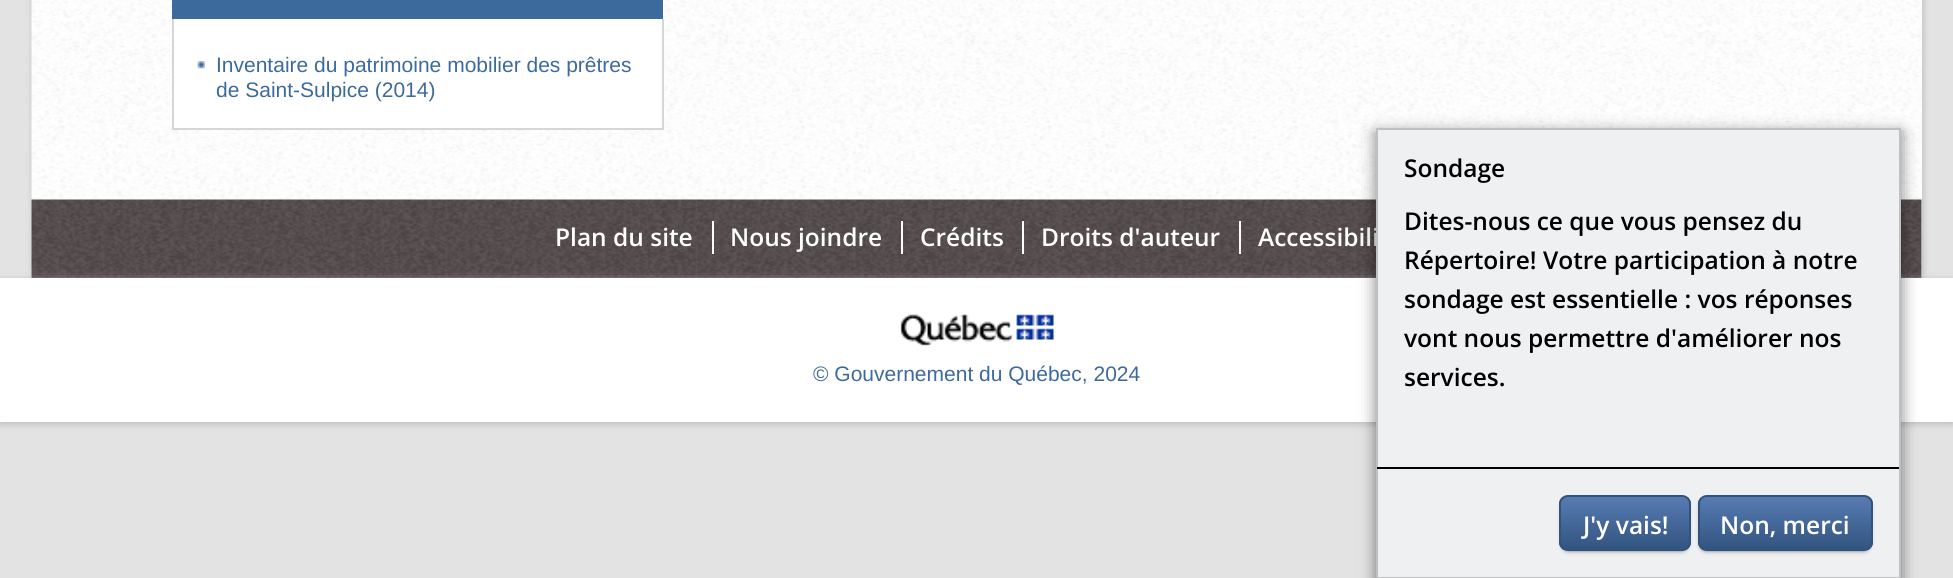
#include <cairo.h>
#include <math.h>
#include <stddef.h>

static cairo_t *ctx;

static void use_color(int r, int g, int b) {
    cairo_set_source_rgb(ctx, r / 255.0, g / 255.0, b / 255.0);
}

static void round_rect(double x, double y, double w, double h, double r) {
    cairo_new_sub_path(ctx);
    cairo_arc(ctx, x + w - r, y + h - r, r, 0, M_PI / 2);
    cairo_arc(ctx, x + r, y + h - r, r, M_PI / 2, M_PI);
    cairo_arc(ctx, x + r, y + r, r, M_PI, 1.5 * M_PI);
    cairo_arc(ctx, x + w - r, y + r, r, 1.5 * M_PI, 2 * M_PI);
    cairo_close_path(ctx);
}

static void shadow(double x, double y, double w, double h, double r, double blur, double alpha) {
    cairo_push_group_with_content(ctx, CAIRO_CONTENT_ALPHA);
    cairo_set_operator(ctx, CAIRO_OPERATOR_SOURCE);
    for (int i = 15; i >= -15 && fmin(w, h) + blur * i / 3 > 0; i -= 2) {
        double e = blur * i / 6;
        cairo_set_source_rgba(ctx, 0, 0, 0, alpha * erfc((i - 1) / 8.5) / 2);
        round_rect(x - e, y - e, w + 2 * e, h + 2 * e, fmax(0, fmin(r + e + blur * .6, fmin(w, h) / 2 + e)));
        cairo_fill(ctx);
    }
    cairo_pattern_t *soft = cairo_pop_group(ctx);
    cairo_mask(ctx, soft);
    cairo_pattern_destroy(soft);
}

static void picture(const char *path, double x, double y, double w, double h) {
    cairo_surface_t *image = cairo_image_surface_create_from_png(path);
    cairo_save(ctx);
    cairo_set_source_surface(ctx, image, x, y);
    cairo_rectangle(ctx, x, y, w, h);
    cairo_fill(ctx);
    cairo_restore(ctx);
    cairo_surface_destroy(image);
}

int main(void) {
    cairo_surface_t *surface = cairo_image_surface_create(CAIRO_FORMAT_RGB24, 1953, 578);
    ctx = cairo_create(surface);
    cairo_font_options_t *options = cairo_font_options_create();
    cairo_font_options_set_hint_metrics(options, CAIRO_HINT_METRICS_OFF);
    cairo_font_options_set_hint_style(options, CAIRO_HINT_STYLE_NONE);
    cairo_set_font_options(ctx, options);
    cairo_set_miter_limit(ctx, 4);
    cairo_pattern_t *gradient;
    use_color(228, 227, 227);
    cairo_paint(ctx);
    use_color(187, 187, 187);
    shadow(33, -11, 1890, 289, 0, 3.5, 1);
    use_color(255, 255, 255);
    cairo_rectangle(ctx, 1921, 0, 1, 278);
    cairo_fill(ctx);
    picture("img1.png", 31, 0, 1891, 278);
    use_color(61, 106, 157);
    cairo_rectangle(ctx, 172, 0, 491, 19);
    cairo_fill(ctx);
    use_color(255, 255, 255);
    cairo_rectangle(ctx, 174, 19, 488, 109);
    cairo_fill(ctx);
    use_color(214, 214, 214);
    cairo_rectangle(ctx, 662, 19, 2, 111);
    cairo_fill(ctx);
    cairo_rectangle(ctx, 172, 128, 491, 2);
    cairo_fill(ctx);
    cairo_rectangle(ctx, 172, 19, 2, 111);
    cairo_fill(ctx);
    picture("img2.png", 197, 61, 8, 8);
    cairo_select_font_face(ctx, "Liberation Sans", CAIRO_FONT_SLANT_NORMAL, CAIRO_FONT_WEIGHT_NORMAL);
    cairo_set_font_size(ctx, 21);
    use_color(61, 106, 157);
    cairo_move_to(ctx, 216, 72);
    cairo_show_text(ctx, "Inventaire du patrimoine mobilier des prêtres");
    cairo_move_to(ctx, 216, 97);
    cairo_show_text(ctx, "de Saint-Sulpice (2014)");
    picture("img3.png", 31, 199, 1891, 79);
    cairo_select_font_face(ctx, "Open Sans SemiBold", CAIRO_FONT_SLANT_NORMAL, CAIRO_FONT_WEIGHT_NORMAL);
    cairo_set_font_size(ctx, 24.5);
    use_color(255, 255, 255);
    cairo_move_to(ctx, 555, 246);
    cairo_show_text(ctx, "Plan du site");
    cairo_move_to(ctx, 730, 246);
    cairo_show_text(ctx, "Nous joindre");
    cairo_rectangle(ctx, 712, 221, 2, 33);
    cairo_fill(ctx);
    cairo_move_to(ctx, 920, 246);
    cairo_show_text(ctx, "Crédits");
    cairo_rectangle(ctx, 901, 221, 2, 33);
    cairo_fill(ctx);
    cairo_move_to(ctx, 1041, 246);
    cairo_show_text(ctx, "Droits d'auteur");
    cairo_rectangle(ctx, 1022, 221, 2, 33);
    cairo_fill(ctx);
    cairo_move_to(ctx, 1258, 246);
    cairo_show_text(ctx, "Accessibili");
    cairo_rectangle(ctx, 1239, 221, 2, 33);
    cairo_fill(ctx);
    use_color(187, 187, 187);
    shadow(0, 280, 1953, 144, 0, 3.5, 1);
    use_color(255, 255, 255);
    cairo_rectangle(ctx, 0, 278, 1953, 144);
    cairo_fill(ctx);
    use_color(239, 240, 242);
    cairo_rectangle(ctx, 1376, 128, 525, 450);
    cairo_fill(ctx);
    cairo_save(ctx);
    cairo_set_fill_rule(ctx, CAIRO_FILL_RULE_EVEN_ODD);
    cairo_new_path(ctx);
    cairo_move_to(ctx, 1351, 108);
    cairo_line_to(ctx, 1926, 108);
    cairo_line_to(ctx, 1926, 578);
    cairo_line_to(ctx, 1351, 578);
    cairo_close_path(ctx);
    cairo_move_to(ctx, 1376, 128);
    cairo_line_to(ctx, 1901, 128);
    cairo_line_to(ctx, 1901, 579);
    cairo_line_to(ctx, 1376, 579);
    cairo_close_path(ctx);
    cairo_clip(ctx);
    use_color(0, 0, 0);
    shadow(1376, 133, 525, 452, 0, 8, 0.5);
    cairo_restore(ctx);
    cairo_rectangle(ctx, 1377, 129, 523, 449);
    cairo_set_source_rgba(ctx, 0, 0, 0, 0.2);
    cairo_stroke(ctx);
    use_color(0, 0, 0);
    cairo_move_to(ctx, 1404, 177);
    cairo_show_text(ctx, "Sondage");
    cairo_move_to(ctx, 1404, 230);
    cairo_show_text(ctx, "Dites-nous ce que vous pensez du");
    cairo_move_to(ctx, 1404, 269);
    cairo_show_text(ctx, "Répertoire! Votre participation à notre");
    cairo_move_to(ctx, 1404, 308);
    cairo_show_text(ctx, "sondage est essentielle : vos réponses");
    cairo_move_to(ctx, 1404, 347);
    cairo_show_text(ctx, "vont nous permettre d'améliorer nos");
    cairo_move_to(ctx, 1404, 386);
    cairo_show_text(ctx, "services.");
    cairo_rectangle(ctx, 1377, 467, 522, 2);
    cairo_fill(ctx);
    use_color(0, 0, 0);
    shadow(1563, 501, 124, 49, 5, 2.5, 0.8);
    cairo_save(ctx);
    round_rect(1559, 495, 132, 56, 9);
    cairo_clip(ctx);
    gradient = cairo_pattern_create_linear(1625, 497, 1625, 550);
    cairo_pattern_add_color_stop_rgba(gradient, 0, 0.345, 0.482, 0.706, 1);
    cairo_pattern_add_color_stop_rgba(gradient, 1, 0.192, 0.329, 0.494, 1);
    cairo_set_source(ctx, gradient);
    cairo_pattern_destroy(gradient);
    cairo_rectangle(ctx, 1559, 497, 132, 53);
    cairo_fill(ctx);
    cairo_restore(ctx);
    round_rect(1560, 496, 130, 54, 8);
    use_color(49, 84, 126);
    cairo_stroke(ctx);
    use_color(255, 255, 255);
    cairo_move_to(ctx, 1583, 534);
    cairo_show_text(ctx, "J'y vais!");
    use_color(0, 0, 0);
    shadow(1701, 501, 168, 49, 5, 2.5, 0.8);
    cairo_save(ctx);
    round_rect(1698, 495, 175, 56, 9);
    cairo_clip(ctx);
    gradient = cairo_pattern_create_linear(1785, 497, 1785, 550);
    cairo_pattern_add_color_stop_rgba(gradient, 0, 0.345, 0.482, 0.706, 1);
    cairo_pattern_add_color_stop_rgba(gradient, 1, 0.192, 0.329, 0.494, 1);
    cairo_set_source(ctx, gradient);
    cairo_pattern_destroy(gradient);
    cairo_rectangle(ctx, 1698, 497, 175, 53);
    cairo_fill(ctx);
    cairo_restore(ctx);
    round_rect(1699, 496, 173, 54, 8);
    use_color(49, 84, 126);
    cairo_stroke(ctx);
    use_color(255, 255, 255);
    cairo_move_to(ctx, 1720, 534);
    cairo_show_text(ctx, "Non, merci");
    picture("img4.png", 900, 314, 154, 32);
    cairo_select_font_face(ctx, "Liberation Sans", CAIRO_FONT_SLANT_NORMAL, CAIRO_FONT_WEIGHT_NORMAL);
    cairo_set_font_size(ctx, 21);
    use_color(61, 106, 157);
    cairo_move_to(ctx, 813, 381);
    cairo_show_text(ctx, "© Gouvernement du Québec, 2024");
    cairo_surface_write_to_png(surface, "result.png");
    cairo_font_options_destroy(options);
    cairo_destroy(ctx);
    cairo_surface_destroy(surface);
    return 0;
}
